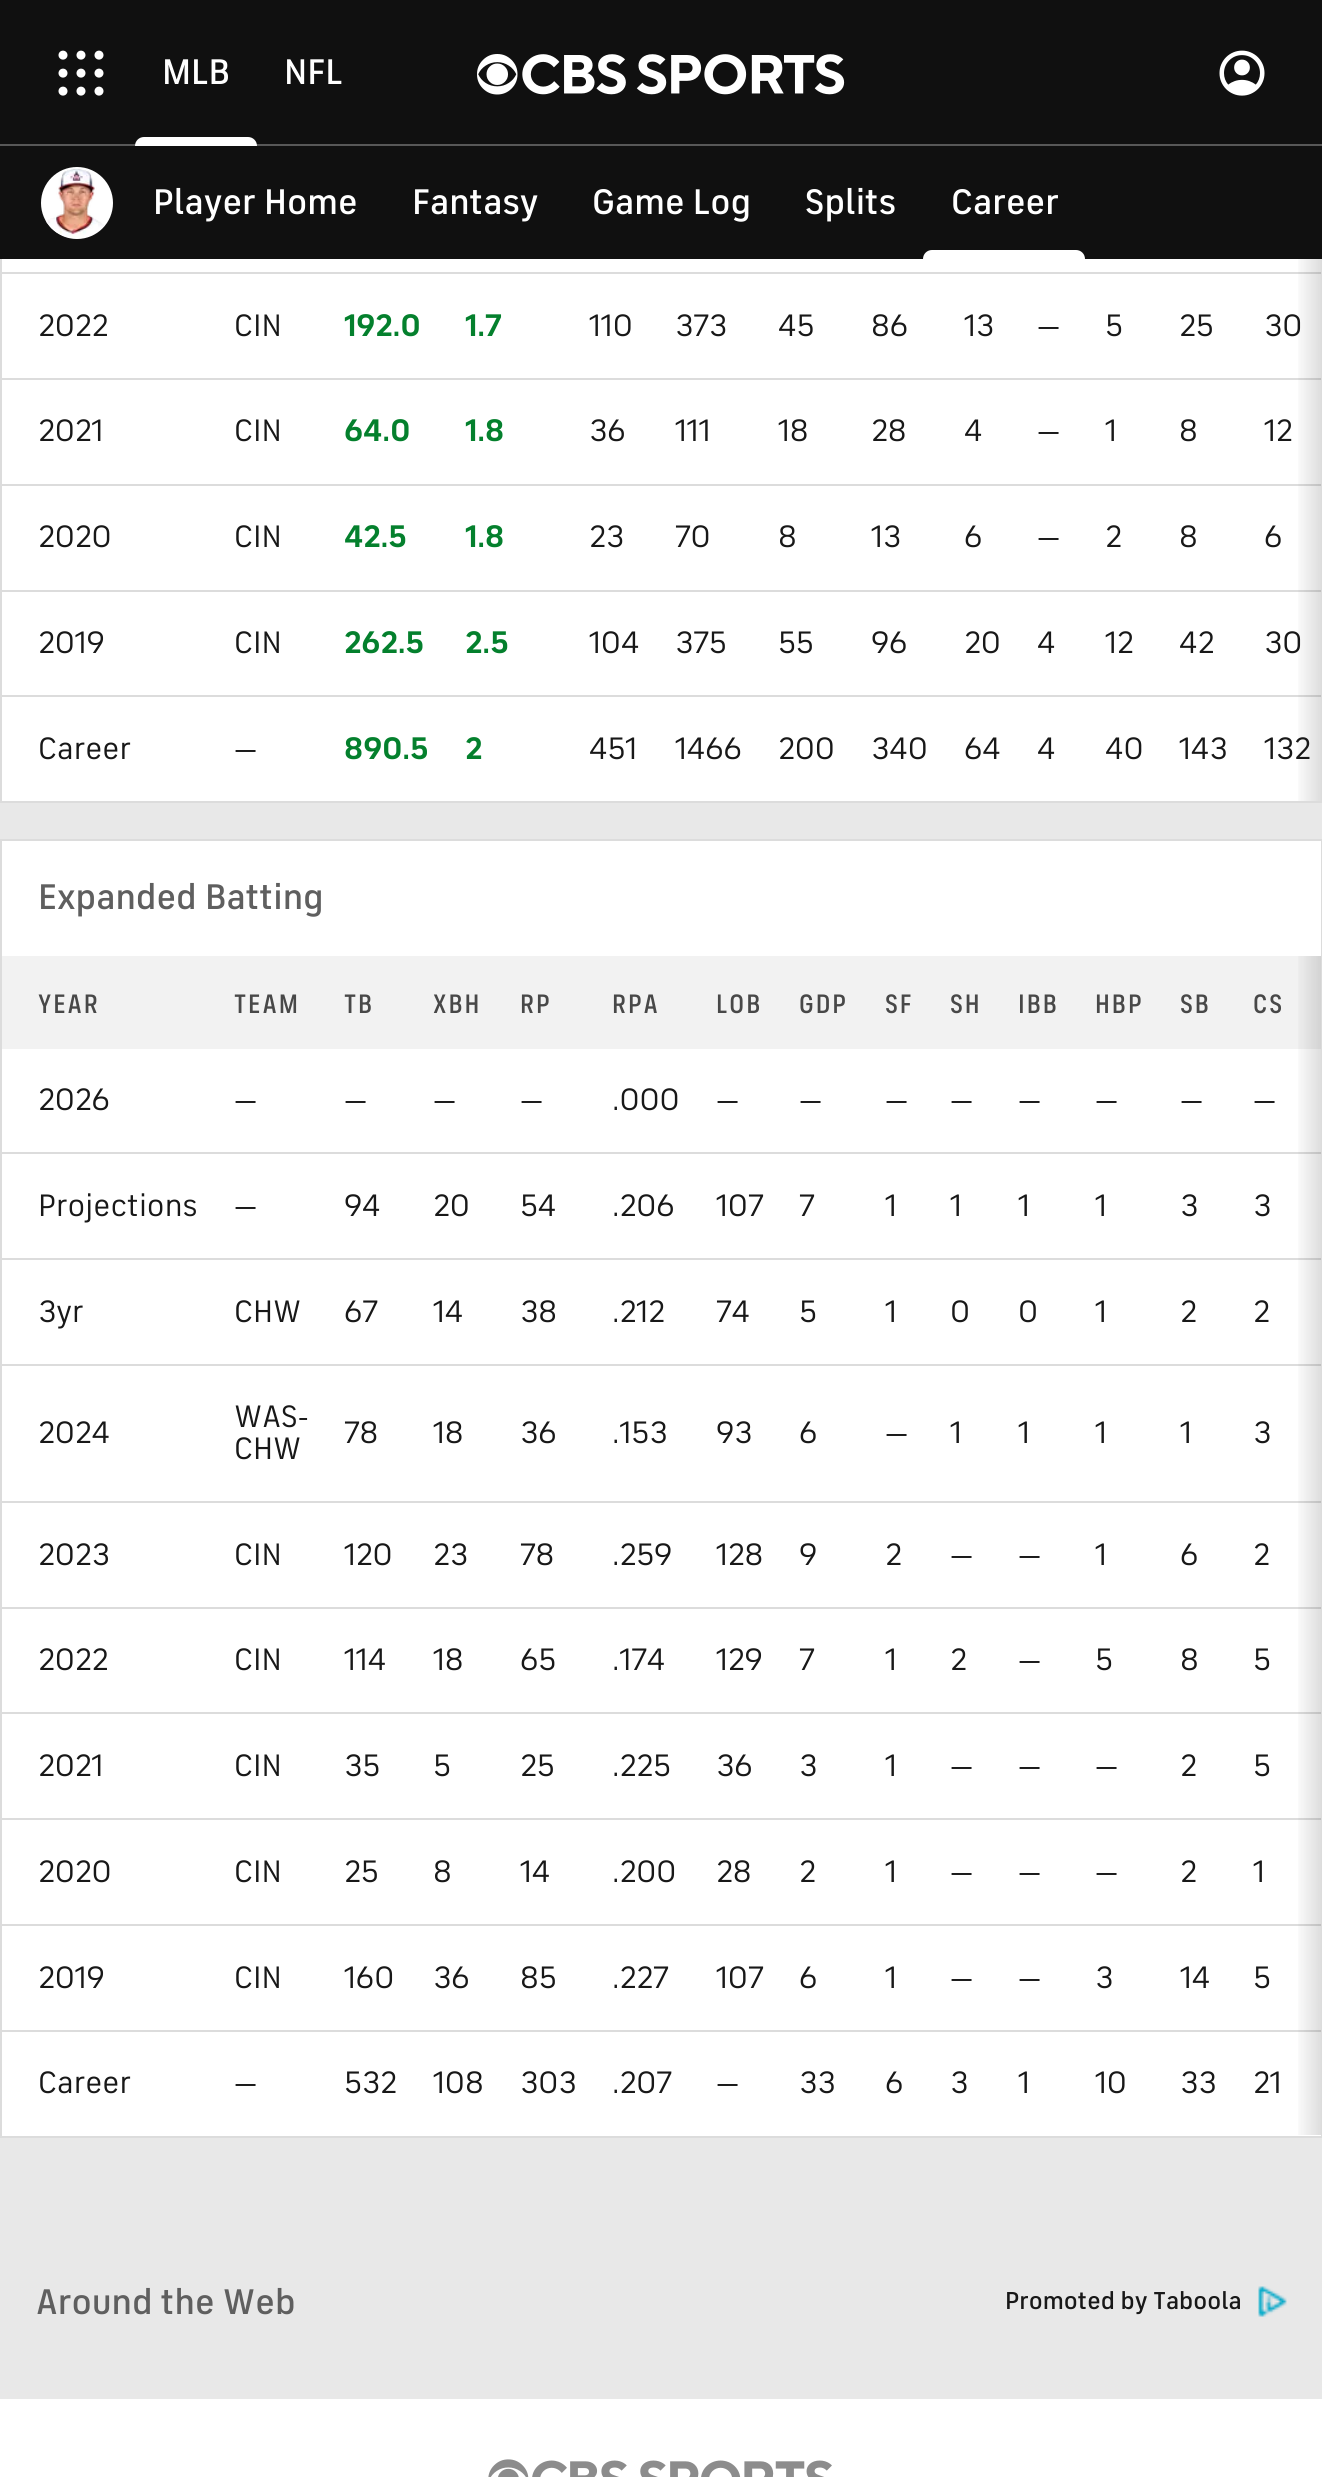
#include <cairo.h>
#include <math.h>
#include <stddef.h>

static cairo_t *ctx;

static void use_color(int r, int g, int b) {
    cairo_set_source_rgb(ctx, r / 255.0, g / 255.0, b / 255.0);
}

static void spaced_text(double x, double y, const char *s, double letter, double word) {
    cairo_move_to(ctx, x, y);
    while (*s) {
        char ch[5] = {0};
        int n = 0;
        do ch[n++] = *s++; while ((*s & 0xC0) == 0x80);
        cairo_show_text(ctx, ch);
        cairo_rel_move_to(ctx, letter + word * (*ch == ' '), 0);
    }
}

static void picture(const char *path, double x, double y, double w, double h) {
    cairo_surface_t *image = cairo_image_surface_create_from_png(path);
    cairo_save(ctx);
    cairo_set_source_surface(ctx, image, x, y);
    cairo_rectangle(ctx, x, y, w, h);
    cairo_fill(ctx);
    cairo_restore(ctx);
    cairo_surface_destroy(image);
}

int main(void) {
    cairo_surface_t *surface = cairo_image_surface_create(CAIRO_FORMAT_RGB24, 1322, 2477);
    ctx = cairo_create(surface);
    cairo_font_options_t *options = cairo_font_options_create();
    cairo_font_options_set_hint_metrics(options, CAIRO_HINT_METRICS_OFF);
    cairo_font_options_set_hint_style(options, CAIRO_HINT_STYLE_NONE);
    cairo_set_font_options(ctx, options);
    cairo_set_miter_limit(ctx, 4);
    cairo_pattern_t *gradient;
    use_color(255, 255, 255);
    cairo_paint(ctx);
    cairo_rectangle(ctx, 1, -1, 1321, 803);
    use_color(220, 220, 220);
    cairo_stroke(ctx);
    use_color(16, 16, 16);
    cairo_rectangle(ctx, 0, 0, 1322, 144);
    cairo_fill(ctx);
    use_color(88, 88, 88);
    cairo_rectangle(ctx, 0, 144, 1322, 2);
    cairo_fill(ctx);
    picture("img1.png", 58, 50, 46, 46);
    cairo_select_font_face(ctx, "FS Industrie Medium", CAIRO_FONT_SLANT_NORMAL, CAIRO_FONT_WEIGHT_NORMAL);
    cairo_set_font_size(ctx, 36);
    use_color(255, 255, 255);
    cairo_move_to(ctx, 162, 84);
    cairo_show_text(ctx, "MLB");
    cairo_new_path(ctx);
    cairo_move_to(ctx, 144, 137);
    cairo_line_to(ctx, 248, 137);
    cairo_curve_to(ctx, 253, 137, 257, 141, 257, 146);
    cairo_line_to(ctx, 135, 146);
    cairo_curve_to(ctx, 135, 141, 139, 137, 144, 137);
    cairo_close_path(ctx);
    cairo_fill(ctx);
    cairo_move_to(ctx, 284, 84);
    cairo_show_text(ctx, "NFL");
    picture("img2.png", 477, 54, 41, 41);
    picture("img3.png", 522, 54, 323, 41);
    picture("img4.png", 1219, 50, 46, 46);
    use_color(16, 16, 16);
    cairo_rectangle(ctx, 0, 146, 1322, 113);
    cairo_fill(ctx);
    use_color(255, 255, 255);
    cairo_arc(ctx, 77, 203, 36, 0, 2 * M_PI);
    cairo_fill(ctx);
    picture("img5.png", 45, 168, 59, 71);
    cairo_move_to(ctx, 153, 214);
    cairo_show_text(ctx, "Player Home");
    cairo_move_to(ctx, 412, 214);
    cairo_show_text(ctx, "Fantasy");
    cairo_move_to(ctx, 592, 214);
    cairo_show_text(ctx, "Game Log");
    cairo_move_to(ctx, 805, 214);
    cairo_show_text(ctx, "Splits");
    cairo_move_to(ctx, 951, 214);
    cairo_show_text(ctx, "Career");
    cairo_new_path(ctx);
    cairo_move_to(ctx, 932, 250);
    cairo_line_to(ctx, 1076, 250);
    cairo_curve_to(ctx, 1081, 250, 1085, 254, 1085, 259);
    cairo_line_to(ctx, 923, 259);
    cairo_curve_to(ctx, 923, 254, 927, 250, 932, 250);
    cairo_close_path(ctx);
    cairo_fill(ctx);
    use_color(232, 232, 232);
    cairo_rectangle(ctx, 0, 803, 1322, 1596);
    cairo_fill(ctx);
    use_color(220, 220, 220);
    cairo_rectangle(ctx, 2, 272, 1319, 2);
    cairo_fill(ctx);
    cairo_rectangle(ctx, 2, 378, 1319, 2);
    cairo_fill(ctx);
    cairo_rectangle(ctx, 2, 484, 1319, 2);
    cairo_fill(ctx);
    cairo_rectangle(ctx, 2, 590, 1319, 2);
    cairo_fill(ctx);
    cairo_rectangle(ctx, 2, 695, 1319, 2);
    cairo_fill(ctx);
    gradient = cairo_pattern_create_linear(1294, 212, 1321, 212);
    cairo_pattern_add_color_stop_rgba(gradient, 0, 0.129, 0.129, 0.129, 0);
    cairo_pattern_add_color_stop_rgba(gradient, 1, 0.129, 0.129, 0.129, 0.15);
    cairo_set_source(ctx, gradient);
    cairo_pattern_destroy(gradient);
    cairo_rectangle(ctx, 1298, 259, 23, 542);
    cairo_fill(ctx);
    cairo_select_font_face(ctx, "FS Industrie", CAIRO_FONT_SLANT_NORMAL, CAIRO_FONT_WEIGHT_NORMAL);
    cairo_set_font_size(ctx, 31.5);
    use_color(24, 24, 24);
    cairo_move_to(ctx, 38, 336);
    cairo_show_text(ctx, "2022");
    cairo_move_to(ctx, 234, 336);
    cairo_show_text(ctx, "CIN");
    cairo_select_font_face(ctx, "FS Industrie", CAIRO_FONT_SLANT_NORMAL, CAIRO_FONT_WEIGHT_BOLD);
    use_color(4, 128, 45);
    cairo_move_to(ctx, 344, 336);
    cairo_show_text(ctx, "192.0");
    cairo_move_to(ctx, 465, 336);
    cairo_show_text(ctx, "1.7");
    cairo_select_font_face(ctx, "FS Industrie", CAIRO_FONT_SLANT_NORMAL, CAIRO_FONT_WEIGHT_NORMAL);
    use_color(24, 24, 24);
    cairo_move_to(ctx, 589, 336);
    cairo_show_text(ctx, "110");
    cairo_move_to(ctx, 675, 336);
    cairo_show_text(ctx, "373");
    cairo_move_to(ctx, 778, 336);
    cairo_show_text(ctx, "45");
    cairo_move_to(ctx, 871, 336);
    cairo_show_text(ctx, "86");
    cairo_move_to(ctx, 964, 336);
    cairo_show_text(ctx, "13");
    cairo_move_to(ctx, 1037, 336);
    cairo_show_text(ctx, "—");
    cairo_move_to(ctx, 1105, 336);
    cairo_show_text(ctx, "5");
    cairo_move_to(ctx, 1179, 336);
    cairo_show_text(ctx, "25");
    cairo_move_to(ctx, 1264, 336);
    cairo_show_text(ctx, "30");
    cairo_move_to(ctx, 38, 441);
    cairo_show_text(ctx, "2021");
    cairo_move_to(ctx, 234, 441);
    cairo_show_text(ctx, "CIN");
    cairo_select_font_face(ctx, "FS Industrie", CAIRO_FONT_SLANT_NORMAL, CAIRO_FONT_WEIGHT_BOLD);
    use_color(4, 128, 45);
    cairo_move_to(ctx, 344, 441);
    cairo_show_text(ctx, "64.0");
    cairo_move_to(ctx, 465, 441);
    cairo_show_text(ctx, "1.8");
    cairo_select_font_face(ctx, "FS Industrie", CAIRO_FONT_SLANT_NORMAL, CAIRO_FONT_WEIGHT_NORMAL);
    use_color(24, 24, 24);
    cairo_move_to(ctx, 589, 441);
    cairo_show_text(ctx, "36");
    cairo_move_to(ctx, 675, 441);
    cairo_show_text(ctx, "111");
    cairo_move_to(ctx, 778, 441);
    cairo_show_text(ctx, "18");
    cairo_move_to(ctx, 871, 441);
    cairo_show_text(ctx, "28");
    cairo_move_to(ctx, 964, 441);
    cairo_show_text(ctx, "4");
    cairo_move_to(ctx, 1037, 441);
    cairo_show_text(ctx, "—");
    cairo_move_to(ctx, 1105, 441);
    cairo_show_text(ctx, "1");
    cairo_move_to(ctx, 1179, 441);
    cairo_show_text(ctx, "8");
    cairo_move_to(ctx, 1264, 441);
    cairo_show_text(ctx, "12");
    cairo_move_to(ctx, 38, 547);
    cairo_show_text(ctx, "2020");
    cairo_move_to(ctx, 234, 547);
    cairo_show_text(ctx, "CIN");
    cairo_select_font_face(ctx, "FS Industrie", CAIRO_FONT_SLANT_NORMAL, CAIRO_FONT_WEIGHT_BOLD);
    use_color(4, 128, 45);
    cairo_move_to(ctx, 344, 547);
    cairo_show_text(ctx, "42.5");
    cairo_move_to(ctx, 465, 547);
    cairo_show_text(ctx, "1.8");
    cairo_select_font_face(ctx, "FS Industrie", CAIRO_FONT_SLANT_NORMAL, CAIRO_FONT_WEIGHT_NORMAL);
    use_color(24, 24, 24);
    cairo_move_to(ctx, 589, 547);
    cairo_show_text(ctx, "23");
    cairo_move_to(ctx, 675, 547);
    cairo_show_text(ctx, "70");
    cairo_move_to(ctx, 778, 547);
    cairo_show_text(ctx, "8");
    cairo_move_to(ctx, 871, 547);
    cairo_show_text(ctx, "13");
    cairo_move_to(ctx, 964, 547);
    cairo_show_text(ctx, "6");
    cairo_move_to(ctx, 1037, 547);
    cairo_show_text(ctx, "—");
    cairo_move_to(ctx, 1105, 547);
    cairo_show_text(ctx, "2");
    cairo_move_to(ctx, 1179, 547);
    cairo_show_text(ctx, "8");
    cairo_move_to(ctx, 1264, 547);
    cairo_show_text(ctx, "6");
    cairo_move_to(ctx, 38, 653);
    cairo_show_text(ctx, "2019");
    cairo_move_to(ctx, 234, 653);
    cairo_show_text(ctx, "CIN");
    cairo_select_font_face(ctx, "FS Industrie", CAIRO_FONT_SLANT_NORMAL, CAIRO_FONT_WEIGHT_BOLD);
    use_color(4, 128, 45);
    cairo_move_to(ctx, 344, 653);
    cairo_show_text(ctx, "262.5");
    cairo_move_to(ctx, 465, 653);
    cairo_show_text(ctx, "2.5");
    cairo_select_font_face(ctx, "FS Industrie", CAIRO_FONT_SLANT_NORMAL, CAIRO_FONT_WEIGHT_NORMAL);
    use_color(24, 24, 24);
    cairo_move_to(ctx, 589, 653);
    cairo_show_text(ctx, "104");
    cairo_move_to(ctx, 675, 653);
    cairo_show_text(ctx, "375");
    cairo_move_to(ctx, 778, 653);
    cairo_show_text(ctx, "55");
    cairo_move_to(ctx, 871, 653);
    cairo_show_text(ctx, "96");
    cairo_move_to(ctx, 964, 653);
    cairo_show_text(ctx, "20");
    cairo_move_to(ctx, 1037, 653);
    cairo_show_text(ctx, "4");
    cairo_move_to(ctx, 1105, 653);
    cairo_show_text(ctx, "12");
    cairo_move_to(ctx, 1179, 653);
    cairo_show_text(ctx, "42");
    cairo_move_to(ctx, 1264, 653);
    cairo_show_text(ctx, "30");
    cairo_move_to(ctx, 38, 759);
    cairo_show_text(ctx, "Career");
    cairo_move_to(ctx, 234, 759);
    cairo_show_text(ctx, "—");
    cairo_select_font_face(ctx, "FS Industrie", CAIRO_FONT_SLANT_NORMAL, CAIRO_FONT_WEIGHT_BOLD);
    use_color(4, 128, 45);
    cairo_move_to(ctx, 344, 759);
    cairo_show_text(ctx, "890.5");
    cairo_move_to(ctx, 465, 759);
    cairo_show_text(ctx, "2");
    cairo_select_font_face(ctx, "FS Industrie", CAIRO_FONT_SLANT_NORMAL, CAIRO_FONT_WEIGHT_NORMAL);
    use_color(24, 24, 24);
    cairo_move_to(ctx, 589, 759);
    cairo_show_text(ctx, "451");
    cairo_move_to(ctx, 675, 759);
    cairo_show_text(ctx, "1466");
    cairo_move_to(ctx, 778, 759);
    cairo_show_text(ctx, "200");
    cairo_move_to(ctx, 871, 759);
    cairo_show_text(ctx, "340");
    cairo_move_to(ctx, 964, 759);
    cairo_show_text(ctx, "64");
    cairo_move_to(ctx, 1037, 759);
    cairo_show_text(ctx, "4");
    cairo_move_to(ctx, 1105, 759);
    cairo_show_text(ctx, "40");
    cairo_move_to(ctx, 1179, 759);
    cairo_show_text(ctx, "143");
    cairo_move_to(ctx, 1264, 759);
    cairo_show_text(ctx, "132");
    use_color(255, 255, 255);
    cairo_rectangle(ctx, 1, 840, 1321, 1297);
    cairo_fill_preserve(ctx);
    use_color(220, 220, 220);
    cairo_stroke(ctx);
    cairo_select_font_face(ctx, "FS Industrie Medium", CAIRO_FONT_SLANT_NORMAL, CAIRO_FONT_WEIGHT_NORMAL);
    cairo_set_font_size(ctx, 36);
    use_color(95, 95, 95);
    cairo_move_to(ctx, 38, 909);
    cairo_show_text(ctx, "Expanded Batting");
    use_color(242, 242, 242);
    cairo_rectangle(ctx, 2, 956, 1319, 93);
    cairo_fill(ctx);
    cairo_select_font_face(ctx, "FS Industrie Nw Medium", CAIRO_FONT_SLANT_NORMAL, CAIRO_FONT_WEIGHT_NORMAL);
    cairo_set_font_size(ctx, 27);
    use_color(72, 72, 72);
    spaced_text(38, 1013, "YEAR", 2, 0);
    spaced_text(234, 1013, "TEAM", 2, 0);
    spaced_text(344, 1013, "TB", 2, 0);
    spaced_text(433, 1013, "XBH", 2, 0);
    spaced_text(520, 1013, "RP", 2, 0);
    spaced_text(612, 1013, "RPA", 2, 0);
    spaced_text(716, 1013, "LOB", 2, 0);
    spaced_text(799, 1013, "GDP", 2, 0);
    spaced_text(885, 1013, "SF", 2, 0);
    spaced_text(950, 1013, "SH", 2, 0);
    spaced_text(1018, 1013, "IBB", 2, 0);
    spaced_text(1095, 1013, "HBP", 2, 0);
    spaced_text(1180, 1013, "SB", 2, 0);
    spaced_text(1253, 1013, "CS", 2, 0);
    use_color(220, 220, 220);
    cairo_rectangle(ctx, 2, 1152, 1319, 2);
    cairo_fill(ctx);
    cairo_select_font_face(ctx, "FS Industrie", CAIRO_FONT_SLANT_NORMAL, CAIRO_FONT_WEIGHT_NORMAL);
    cairo_set_font_size(ctx, 31.5);
    use_color(24, 24, 24);
    cairo_move_to(ctx, 38, 1110);
    cairo_show_text(ctx, "2026");
    cairo_move_to(ctx, 234, 1110);
    cairo_show_text(ctx, "—");
    cairo_move_to(ctx, 344, 1110);
    cairo_show_text(ctx, "—");
    cairo_move_to(ctx, 433, 1110);
    cairo_show_text(ctx, "—");
    cairo_move_to(ctx, 520, 1110);
    cairo_show_text(ctx, "—");
    cairo_move_to(ctx, 612, 1110);
    cairo_show_text(ctx, ".000");
    cairo_move_to(ctx, 716, 1110);
    cairo_show_text(ctx, "—");
    cairo_move_to(ctx, 799, 1110);
    cairo_show_text(ctx, "—");
    cairo_move_to(ctx, 885, 1110);
    cairo_show_text(ctx, "—");
    cairo_move_to(ctx, 950, 1110);
    cairo_show_text(ctx, "—");
    cairo_move_to(ctx, 1018, 1110);
    cairo_show_text(ctx, "—");
    cairo_move_to(ctx, 1095, 1110);
    cairo_show_text(ctx, "—");
    cairo_move_to(ctx, 1180, 1110);
    cairo_show_text(ctx, "—");
    cairo_move_to(ctx, 1253, 1110);
    cairo_show_text(ctx, "—");
    use_color(220, 220, 220);
    cairo_rectangle(ctx, 2, 1258, 1319, 2);
    cairo_fill(ctx);
    use_color(24, 24, 24);
    cairo_move_to(ctx, 38, 1216);
    cairo_show_text(ctx, "Projections");
    cairo_move_to(ctx, 234, 1216);
    cairo_show_text(ctx, "—");
    cairo_move_to(ctx, 344, 1216);
    cairo_show_text(ctx, "94");
    cairo_move_to(ctx, 433, 1216);
    cairo_show_text(ctx, "20");
    cairo_move_to(ctx, 520, 1216);
    cairo_show_text(ctx, "54");
    cairo_move_to(ctx, 612, 1216);
    cairo_show_text(ctx, ".206");
    cairo_move_to(ctx, 716, 1216);
    cairo_show_text(ctx, "107");
    cairo_move_to(ctx, 799, 1216);
    cairo_show_text(ctx, "7");
    cairo_move_to(ctx, 885, 1216);
    cairo_show_text(ctx, "1");
    cairo_move_to(ctx, 950, 1216);
    cairo_show_text(ctx, "1");
    cairo_move_to(ctx, 1018, 1216);
    cairo_show_text(ctx, "1");
    cairo_move_to(ctx, 1095, 1216);
    cairo_show_text(ctx, "1");
    cairo_move_to(ctx, 1180, 1216);
    cairo_show_text(ctx, "3");
    cairo_move_to(ctx, 1253, 1216);
    cairo_show_text(ctx, "3");
    use_color(220, 220, 220);
    cairo_rectangle(ctx, 2, 1364, 1319, 2);
    cairo_fill(ctx);
    use_color(24, 24, 24);
    cairo_move_to(ctx, 38, 1322);
    cairo_show_text(ctx, "3yr");
    cairo_move_to(ctx, 234, 1322);
    cairo_show_text(ctx, "CHW");
    cairo_move_to(ctx, 344, 1322);
    cairo_show_text(ctx, "67");
    cairo_move_to(ctx, 433, 1322);
    cairo_show_text(ctx, "14");
    cairo_move_to(ctx, 520, 1322);
    cairo_show_text(ctx, "38");
    cairo_move_to(ctx, 612, 1322);
    cairo_show_text(ctx, ".212");
    cairo_move_to(ctx, 716, 1322);
    cairo_show_text(ctx, "74");
    cairo_move_to(ctx, 799, 1322);
    cairo_show_text(ctx, "5");
    cairo_move_to(ctx, 885, 1322);
    cairo_show_text(ctx, "1");
    cairo_move_to(ctx, 950, 1322);
    cairo_show_text(ctx, "0");
    cairo_move_to(ctx, 1018, 1322);
    cairo_show_text(ctx, "0");
    cairo_move_to(ctx, 1095, 1322);
    cairo_show_text(ctx, "1");
    cairo_move_to(ctx, 1180, 1322);
    cairo_show_text(ctx, "2");
    cairo_move_to(ctx, 1253, 1322);
    cairo_show_text(ctx, "2");
    use_color(220, 220, 220);
    cairo_rectangle(ctx, 2, 1501, 1319, 2);
    cairo_fill(ctx);
    use_color(24, 24, 24);
    cairo_move_to(ctx, 38, 1443);
    cairo_show_text(ctx, "2024");
    cairo_move_to(ctx, 234, 1427);
    cairo_show_text(ctx, "WAS-");
    cairo_move_to(ctx, 234, 1459);
    cairo_show_text(ctx, "CHW");
    cairo_move_to(ctx, 344, 1443);
    cairo_show_text(ctx, "78");
    cairo_move_to(ctx, 433, 1443);
    cairo_show_text(ctx, "18");
    cairo_move_to(ctx, 520, 1443);
    cairo_show_text(ctx, "36");
    cairo_move_to(ctx, 612, 1443);
    cairo_show_text(ctx, ".153");
    cairo_move_to(ctx, 716, 1443);
    cairo_show_text(ctx, "93");
    cairo_move_to(ctx, 799, 1443);
    cairo_show_text(ctx, "6");
    cairo_move_to(ctx, 885, 1443);
    cairo_show_text(ctx, "—");
    cairo_move_to(ctx, 950, 1443);
    cairo_show_text(ctx, "1");
    cairo_move_to(ctx, 1018, 1443);
    cairo_show_text(ctx, "1");
    cairo_move_to(ctx, 1095, 1443);
    cairo_show_text(ctx, "1");
    cairo_move_to(ctx, 1180, 1443);
    cairo_show_text(ctx, "1");
    cairo_move_to(ctx, 1253, 1443);
    cairo_show_text(ctx, "3");
    use_color(220, 220, 220);
    cairo_rectangle(ctx, 2, 1607, 1319, 2);
    cairo_fill(ctx);
    use_color(24, 24, 24);
    cairo_move_to(ctx, 38, 1565);
    cairo_show_text(ctx, "2023");
    cairo_move_to(ctx, 234, 1565);
    cairo_show_text(ctx, "CIN");
    cairo_move_to(ctx, 344, 1565);
    cairo_show_text(ctx, "120");
    cairo_move_to(ctx, 433, 1565);
    cairo_show_text(ctx, "23");
    cairo_move_to(ctx, 520, 1565);
    cairo_show_text(ctx, "78");
    cairo_move_to(ctx, 612, 1565);
    cairo_show_text(ctx, ".259");
    cairo_move_to(ctx, 716, 1565);
    cairo_show_text(ctx, "128");
    cairo_move_to(ctx, 799, 1565);
    cairo_show_text(ctx, "9");
    cairo_move_to(ctx, 885, 1565);
    cairo_show_text(ctx, "2");
    cairo_move_to(ctx, 950, 1565);
    cairo_show_text(ctx, "—");
    cairo_move_to(ctx, 1018, 1565);
    cairo_show_text(ctx, "—");
    cairo_move_to(ctx, 1095, 1565);
    cairo_show_text(ctx, "1");
    cairo_move_to(ctx, 1180, 1565);
    cairo_show_text(ctx, "6");
    cairo_move_to(ctx, 1253, 1565);
    cairo_show_text(ctx, "2");
    use_color(220, 220, 220);
    cairo_rectangle(ctx, 2, 1712, 1319, 2);
    cairo_fill(ctx);
    use_color(24, 24, 24);
    cairo_move_to(ctx, 38, 1670);
    cairo_show_text(ctx, "2022");
    cairo_move_to(ctx, 234, 1670);
    cairo_show_text(ctx, "CIN");
    cairo_move_to(ctx, 344, 1670);
    cairo_show_text(ctx, "114");
    cairo_move_to(ctx, 433, 1670);
    cairo_show_text(ctx, "18");
    cairo_move_to(ctx, 520, 1670);
    cairo_show_text(ctx, "65");
    cairo_move_to(ctx, 612, 1670);
    cairo_show_text(ctx, ".174");
    cairo_move_to(ctx, 716, 1670);
    cairo_show_text(ctx, "129");
    cairo_move_to(ctx, 799, 1670);
    cairo_show_text(ctx, "7");
    cairo_move_to(ctx, 885, 1670);
    cairo_show_text(ctx, "1");
    cairo_move_to(ctx, 950, 1670);
    cairo_show_text(ctx, "2");
    cairo_move_to(ctx, 1018, 1670);
    cairo_show_text(ctx, "—");
    cairo_move_to(ctx, 1095, 1670);
    cairo_show_text(ctx, "5");
    cairo_move_to(ctx, 1180, 1670);
    cairo_show_text(ctx, "8");
    cairo_move_to(ctx, 1253, 1670);
    cairo_show_text(ctx, "5");
    use_color(220, 220, 220);
    cairo_rectangle(ctx, 2, 1818, 1319, 2);
    cairo_fill(ctx);
    use_color(24, 24, 24);
    cairo_move_to(ctx, 38, 1776);
    cairo_show_text(ctx, "2021");
    cairo_move_to(ctx, 234, 1776);
    cairo_show_text(ctx, "CIN");
    cairo_move_to(ctx, 344, 1776);
    cairo_show_text(ctx, "35");
    cairo_move_to(ctx, 433, 1776);
    cairo_show_text(ctx, "5");
    cairo_move_to(ctx, 520, 1776);
    cairo_show_text(ctx, "25");
    cairo_move_to(ctx, 612, 1776);
    cairo_show_text(ctx, ".225");
    cairo_move_to(ctx, 716, 1776);
    cairo_show_text(ctx, "36");
    cairo_move_to(ctx, 799, 1776);
    cairo_show_text(ctx, "3");
    cairo_move_to(ctx, 885, 1776);
    cairo_show_text(ctx, "1");
    cairo_move_to(ctx, 950, 1776);
    cairo_show_text(ctx, "—");
    cairo_move_to(ctx, 1018, 1776);
    cairo_show_text(ctx, "—");
    cairo_move_to(ctx, 1095, 1776);
    cairo_show_text(ctx, "—");
    cairo_move_to(ctx, 1180, 1776);
    cairo_show_text(ctx, "2");
    cairo_move_to(ctx, 1253, 1776);
    cairo_show_text(ctx, "5");
    use_color(220, 220, 220);
    cairo_rectangle(ctx, 2, 1924, 1319, 2);
    cairo_fill(ctx);
    use_color(24, 24, 24);
    cairo_move_to(ctx, 38, 1882);
    cairo_show_text(ctx, "2020");
    cairo_move_to(ctx, 234, 1882);
    cairo_show_text(ctx, "CIN");
    cairo_move_to(ctx, 344, 1882);
    cairo_show_text(ctx, "25");
    cairo_move_to(ctx, 433, 1882);
    cairo_show_text(ctx, "8");
    cairo_move_to(ctx, 520, 1882);
    cairo_show_text(ctx, "14");
    cairo_move_to(ctx, 612, 1882);
    cairo_show_text(ctx, ".200");
    cairo_move_to(ctx, 716, 1882);
    cairo_show_text(ctx, "28");
    cairo_move_to(ctx, 799, 1882);
    cairo_show_text(ctx, "2");
    cairo_move_to(ctx, 885, 1882);
    cairo_show_text(ctx, "1");
    cairo_move_to(ctx, 950, 1882);
    cairo_show_text(ctx, "—");
    cairo_move_to(ctx, 1018, 1882);
    cairo_show_text(ctx, "—");
    cairo_move_to(ctx, 1095, 1882);
    cairo_show_text(ctx, "—");
    cairo_move_to(ctx, 1180, 1882);
    cairo_show_text(ctx, "2");
    cairo_move_to(ctx, 1253, 1882);
    cairo_show_text(ctx, "1");
    use_color(220, 220, 220);
    cairo_rectangle(ctx, 2, 2030, 1319, 2);
    cairo_fill(ctx);
    use_color(24, 24, 24);
    cairo_move_to(ctx, 38, 1988);
    cairo_show_text(ctx, "2019");
    cairo_move_to(ctx, 234, 1988);
    cairo_show_text(ctx, "CIN");
    cairo_move_to(ctx, 344, 1988);
    cairo_show_text(ctx, "160");
    cairo_move_to(ctx, 433, 1988);
    cairo_show_text(ctx, "36");
    cairo_move_to(ctx, 520, 1988);
    cairo_show_text(ctx, "85");
    cairo_move_to(ctx, 612, 1988);
    cairo_show_text(ctx, ".227");
    cairo_move_to(ctx, 716, 1988);
    cairo_show_text(ctx, "107");
    cairo_move_to(ctx, 799, 1988);
    cairo_show_text(ctx, "6");
    cairo_move_to(ctx, 885, 1988);
    cairo_show_text(ctx, "1");
    cairo_move_to(ctx, 950, 1988);
    cairo_show_text(ctx, "—");
    cairo_move_to(ctx, 1018, 1988);
    cairo_show_text(ctx, "—");
    cairo_move_to(ctx, 1095, 1988);
    cairo_show_text(ctx, "3");
    cairo_move_to(ctx, 1180, 1988);
    cairo_show_text(ctx, "14");
    cairo_move_to(ctx, 1253, 1988);
    cairo_show_text(ctx, "5");
    cairo_move_to(ctx, 38, 2093);
    cairo_show_text(ctx, "Career");
    cairo_move_to(ctx, 234, 2093);
    cairo_show_text(ctx, "—");
    cairo_move_to(ctx, 344, 2093);
    cairo_show_text(ctx, "532");
    cairo_move_to(ctx, 433, 2093);
    cairo_show_text(ctx, "108");
    cairo_move_to(ctx, 520, 2093);
    cairo_show_text(ctx, "303");
    cairo_move_to(ctx, 612, 2093);
    cairo_show_text(ctx, ".207");
    cairo_move_to(ctx, 716, 2093);
    cairo_show_text(ctx, "—");
    cairo_move_to(ctx, 799, 2093);
    cairo_show_text(ctx, "33");
    cairo_move_to(ctx, 885, 2093);
    cairo_show_text(ctx, "6");
    cairo_move_to(ctx, 950, 2093);
    cairo_show_text(ctx, "3");
    cairo_move_to(ctx, 1018, 2093);
    cairo_show_text(ctx, "1");
    cairo_move_to(ctx, 1095, 2093);
    cairo_show_text(ctx, "10");
    cairo_move_to(ctx, 1180, 2093);
    cairo_show_text(ctx, "33");
    cairo_move_to(ctx, 1253, 2093);
    cairo_show_text(ctx, "21");
    gradient = cairo_pattern_create_linear(1294, 1546, 1321, 1546);
    cairo_pattern_add_color_stop_rgba(gradient, 0, 0.129, 0.129, 0.129, 0);
    cairo_pattern_add_color_stop_rgba(gradient, 1, 0.129, 0.129, 0.129, 0.15);
    cairo_set_source(ctx, gradient);
    cairo_pattern_destroy(gradient);
    cairo_rectangle(ctx, 1298, 956, 23, 1179);
    cairo_fill(ctx);
    cairo_select_font_face(ctx, "FS Industrie Medium", CAIRO_FONT_SLANT_NORMAL, CAIRO_FONT_WEIGHT_NORMAL);
    cairo_set_font_size(ctx, 36);
    use_color(95, 95, 95);
    cairo_move_to(ctx, 36, 2314);
    cairo_show_text(ctx, "Around the Web");
    cairo_set_font_size(ctx, 24.75);
    use_color(24, 24, 24);
    cairo_move_to(ctx, 1005, 2309);
    cairo_show_text(ctx, "Promoted by Taboola");
    picture("img6.png", 1258, 2286, 29, 31);
    picture("img7.png", 488, 2459, 344, 18);
    cairo_surface_write_to_png(surface, "result.png");
    cairo_font_options_destroy(options);
    cairo_destroy(ctx);
    cairo_surface_destroy(surface);
    return 0;
}
